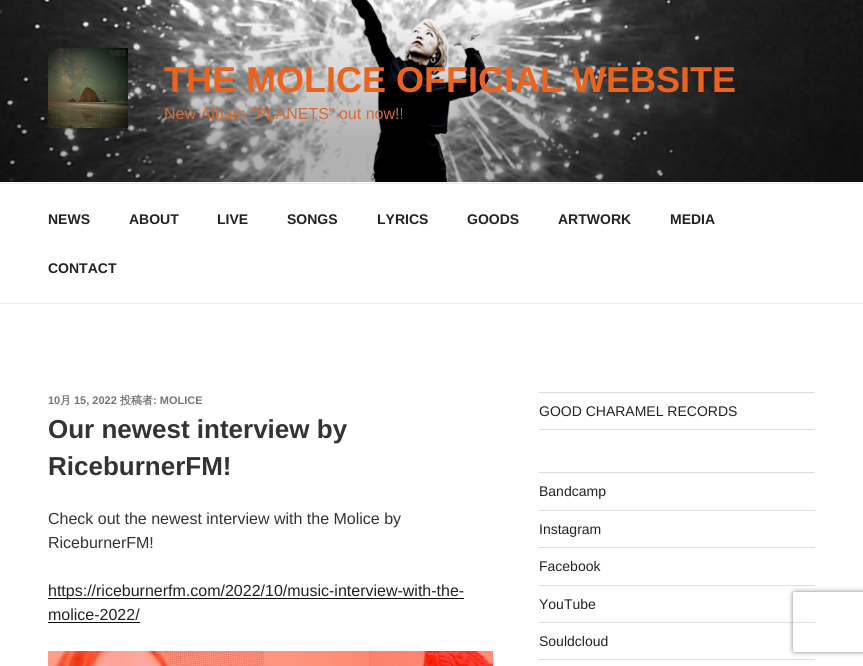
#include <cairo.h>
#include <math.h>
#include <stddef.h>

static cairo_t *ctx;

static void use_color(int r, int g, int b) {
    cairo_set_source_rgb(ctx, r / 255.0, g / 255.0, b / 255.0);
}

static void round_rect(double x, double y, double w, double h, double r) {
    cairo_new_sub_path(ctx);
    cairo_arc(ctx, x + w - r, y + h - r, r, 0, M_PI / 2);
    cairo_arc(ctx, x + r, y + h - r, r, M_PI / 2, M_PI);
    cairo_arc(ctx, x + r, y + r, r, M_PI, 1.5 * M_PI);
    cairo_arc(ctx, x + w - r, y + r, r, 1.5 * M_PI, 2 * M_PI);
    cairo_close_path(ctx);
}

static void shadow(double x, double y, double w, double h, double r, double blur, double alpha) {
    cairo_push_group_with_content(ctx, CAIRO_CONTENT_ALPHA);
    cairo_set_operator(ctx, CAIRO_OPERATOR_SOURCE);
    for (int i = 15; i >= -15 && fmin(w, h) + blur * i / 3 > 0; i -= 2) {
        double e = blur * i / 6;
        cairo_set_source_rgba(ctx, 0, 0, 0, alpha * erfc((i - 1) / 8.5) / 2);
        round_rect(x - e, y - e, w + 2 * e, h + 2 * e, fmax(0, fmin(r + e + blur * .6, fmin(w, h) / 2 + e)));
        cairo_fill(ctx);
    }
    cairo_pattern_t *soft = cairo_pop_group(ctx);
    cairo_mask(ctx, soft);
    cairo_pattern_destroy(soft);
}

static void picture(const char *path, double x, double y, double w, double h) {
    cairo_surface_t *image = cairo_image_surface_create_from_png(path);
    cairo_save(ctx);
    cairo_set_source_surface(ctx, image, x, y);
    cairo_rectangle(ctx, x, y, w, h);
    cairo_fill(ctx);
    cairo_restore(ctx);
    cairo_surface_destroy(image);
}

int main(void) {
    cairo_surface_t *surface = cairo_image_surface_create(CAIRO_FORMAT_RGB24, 863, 666);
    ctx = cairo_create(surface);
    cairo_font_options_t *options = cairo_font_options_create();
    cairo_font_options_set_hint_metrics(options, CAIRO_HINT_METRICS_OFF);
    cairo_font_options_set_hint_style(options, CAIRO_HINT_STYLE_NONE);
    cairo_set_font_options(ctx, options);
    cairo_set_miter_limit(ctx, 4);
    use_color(255, 255, 255);
    cairo_paint(ctx);
    use_color(250, 250, 250);
    cairo_rectangle(ctx, 0, 182, 863, 1);
    cairo_fill(ctx);
    picture("img1.png", 0, 0, 863, 182);
    picture("img2.png", 48, 48, 80, 80);
    cairo_select_font_face(ctx, "Liberation Sans", CAIRO_FONT_SLANT_NORMAL, CAIRO_FONT_WEIGHT_BOLD);
    cairo_set_font_size(ctx, 36);
    use_color(234, 100, 32);
    cairo_move_to(ctx, 164, 92);
    cairo_show_text(ctx, "THE MOLICE OFFICIAL WEBSITE");
    cairo_select_font_face(ctx, "Liberation Sans", CAIRO_FONT_SLANT_NORMAL, CAIRO_FONT_WEIGHT_NORMAL);
    cairo_set_font_size(ctx, 16);
    use_color(213, 106, 52);
    cairo_move_to(ctx, 164, 119);
    cairo_show_text(ctx, "New Album \"PLANETS\" out now!!");
    use_color(238, 238, 238);
    cairo_rectangle(ctx, 0, 183, 863, 1);
    cairo_fill(ctx);
    cairo_rectangle(ctx, 0, 303, 863, 1);
    cairo_fill(ctx);
    cairo_select_font_face(ctx, "Liberation Sans", CAIRO_FONT_SLANT_NORMAL, CAIRO_FONT_WEIGHT_BOLD);
    cairo_set_font_size(ctx, 14);
    use_color(34, 34, 34);
    cairo_move_to(ctx, 48, 224);
    cairo_show_text(ctx, "NEWS");
    cairo_move_to(ctx, 129, 224);
    cairo_show_text(ctx, "ABOUT");
    cairo_move_to(ctx, 217, 224);
    cairo_show_text(ctx, "LIVE");
    cairo_move_to(ctx, 287, 224);
    cairo_show_text(ctx, "SONGS");
    cairo_move_to(ctx, 377, 224);
    cairo_show_text(ctx, "LYRICS");
    cairo_move_to(ctx, 467, 224);
    cairo_show_text(ctx, "GOODS");
    cairo_move_to(ctx, 558, 224);
    cairo_show_text(ctx, "ARTWORK");
    cairo_move_to(ctx, 670, 224);
    cairo_show_text(ctx, "MEDIA");
    cairo_move_to(ctx, 48, 273);
    cairo_show_text(ctx, "CONTACT");
    cairo_set_font_size(ctx, 11);
    use_color(118, 118, 118);
    cairo_move_to(ctx, 48, 404);
    cairo_show_text(ctx, "10");
    cairo_select_font_face(ctx, "WenQuanYi Zen Hei", CAIRO_FONT_SLANT_NORMAL, CAIRO_FONT_WEIGHT_BOLD);
    cairo_move_to(ctx, 60, 404);
    cairo_show_text(ctx, "月");
    cairo_select_font_face(ctx, "Liberation Sans", CAIRO_FONT_SLANT_NORMAL, CAIRO_FONT_WEIGHT_BOLD);
    cairo_move_to(ctx, 74, 404);
    cairo_show_text(ctx, "15, 2022");
    cairo_select_font_face(ctx, "WenQuanYi Zen Hei", CAIRO_FONT_SLANT_NORMAL, CAIRO_FONT_WEIGHT_BOLD);
    cairo_move_to(ctx, 120, 404);
    cairo_show_text(ctx, "投稿者");
    cairo_select_font_face(ctx, "Liberation Sans", CAIRO_FONT_SLANT_NORMAL, CAIRO_FONT_WEIGHT_BOLD);
    cairo_move_to(ctx, 153, 404);
    cairo_show_text(ctx, ": MOLICE");
    cairo_set_font_size(ctx, 26);
    use_color(51, 51, 51);
    cairo_move_to(ctx, 48, 438);
    cairo_show_text(ctx, "Our newest interview by");
    cairo_move_to(ctx, 48, 475);
    cairo_show_text(ctx, "RiceburnerFM!");
    cairo_select_font_face(ctx, "Liberation Sans", CAIRO_FONT_SLANT_NORMAL, CAIRO_FONT_WEIGHT_NORMAL);
    cairo_set_font_size(ctx, 16);
    cairo_move_to(ctx, 48, 524);
    cairo_show_text(ctx, "Check out the newest interview with the Molice by");
    cairo_move_to(ctx, 48, 548);
    cairo_show_text(ctx, "RiceburnerFM!");
    use_color(15, 15, 15);
    cairo_rectangle(ctx, 48, 598, 416, 1);
    cairo_fill(ctx);
    use_color(34, 34, 34);
    cairo_move_to(ctx, 48, 596);
    cairo_show_text(ctx, "https://riceburnerfm.com/2022/10/music-interview-with-the-");
    cairo_move_to(ctx, 48, 620);
    cairo_show_text(ctx, "molice-2022/");
    use_color(15, 15, 15);
    cairo_rectangle(ctx, 48, 622, 92, 1);
    cairo_fill(ctx);
    picture("img3.png", 48, 651, 445, 15);
    use_color(221, 221, 221);
    cairo_rectangle(ctx, 539, 392, 276, 1);
    cairo_fill(ctx);
    cairo_rectangle(ctx, 539, 429, 276, 1);
    cairo_fill(ctx);
    cairo_set_font_size(ctx, 14);
    use_color(34, 34, 34);
    cairo_move_to(ctx, 539, 416);
    cairo_show_text(ctx, "GOOD CHARAMEL RECORDS");
    use_color(221, 221, 221);
    cairo_rectangle(ctx, 539, 472, 276, 1);
    cairo_fill(ctx);
    cairo_rectangle(ctx, 539, 510, 276, 1);
    cairo_fill(ctx);
    use_color(34, 34, 34);
    cairo_move_to(ctx, 539, 496);
    cairo_show_text(ctx, "Bandcamp");
    use_color(221, 221, 221);
    cairo_rectangle(ctx, 539, 547, 276, 1);
    cairo_fill(ctx);
    use_color(34, 34, 34);
    cairo_move_to(ctx, 539, 534);
    cairo_show_text(ctx, "Instagram");
    use_color(221, 221, 221);
    cairo_rectangle(ctx, 539, 585, 276, 1);
    cairo_fill(ctx);
    use_color(34, 34, 34);
    cairo_move_to(ctx, 539, 571);
    cairo_show_text(ctx, "Facebook");
    use_color(221, 221, 221);
    cairo_rectangle(ctx, 539, 622, 276, 1);
    cairo_fill(ctx);
    use_color(34, 34, 34);
    cairo_move_to(ctx, 539, 609);
    cairo_show_text(ctx, "YouTube");
    use_color(221, 221, 221);
    cairo_rectangle(ctx, 539, 659, 276, 1);
    cairo_fill(ctx);
    use_color(34, 34, 34);
    cairo_move_to(ctx, 539, 646);
    cairo_show_text(ctx, "Souldcloud");
    cairo_save(ctx);
    cairo_set_fill_rule(ctx, CAIRO_FILL_RULE_EVEN_ODD);
    cairo_new_path(ctx);
    cairo_move_to(ctx, 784, 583);
    cairo_line_to(ctx, 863, 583);
    cairo_line_to(ctx, 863, 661);
    cairo_line_to(ctx, 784, 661);
    cairo_close_path(ctx);
    cairo_move_to(ctx, 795, 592);
    cairo_line_to(ctx, 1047, 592);
    cairo_curve_to(ctx, 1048, 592, 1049, 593, 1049, 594);
    cairo_line_to(ctx, 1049, 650);
    cairo_curve_to(ctx, 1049, 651, 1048, 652, 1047, 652);
    cairo_line_to(ctx, 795, 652);
    cairo_curve_to(ctx, 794, 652, 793, 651, 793, 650);
    cairo_line_to(ctx, 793, 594);
    cairo_curve_to(ctx, 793, 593, 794, 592, 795, 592);
    cairo_close_path(ctx);
    cairo_clip(ctx);
    use_color(128, 128, 128);
    shadow(793, 592, 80, 60, 2, 2.5, 1);
    cairo_restore(ctx);
    cairo_surface_write_to_png(surface, "result.png");
    cairo_font_options_destroy(options);
    cairo_destroy(ctx);
    cairo_surface_destroy(surface);
    return 0;
}
